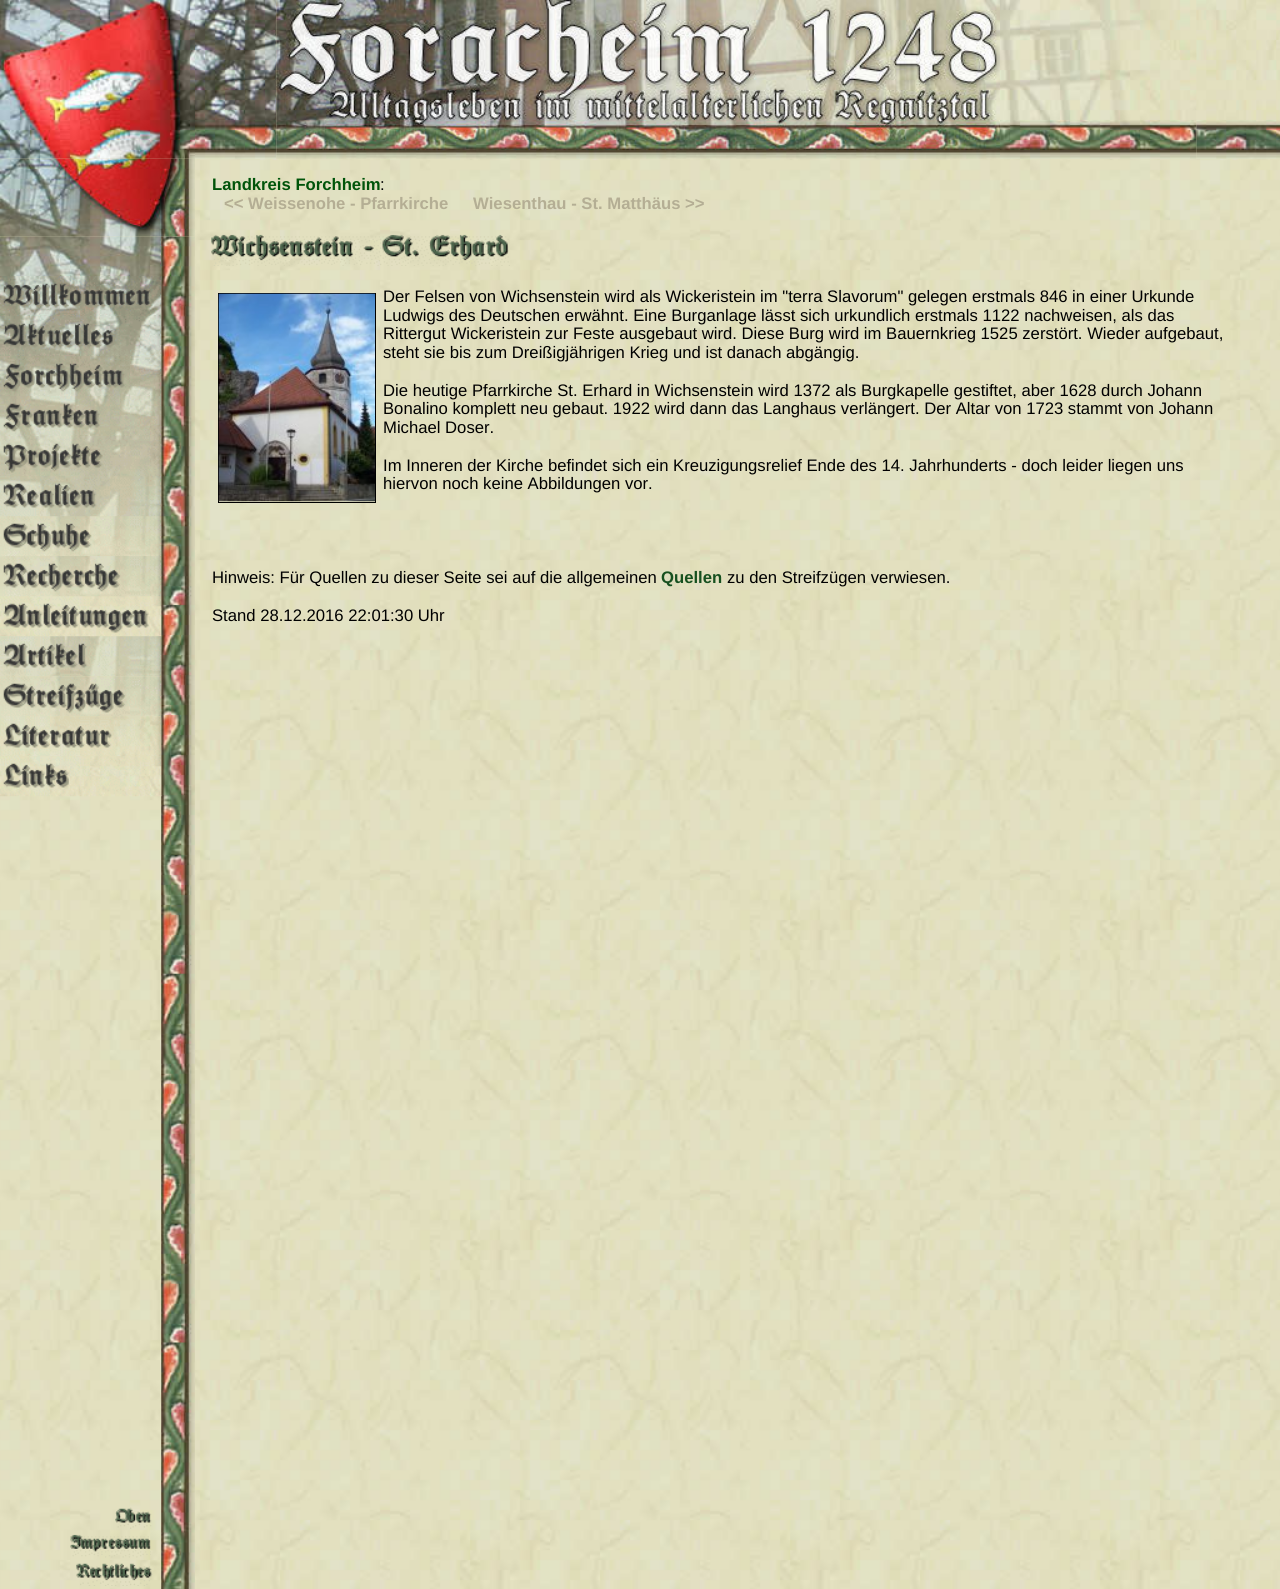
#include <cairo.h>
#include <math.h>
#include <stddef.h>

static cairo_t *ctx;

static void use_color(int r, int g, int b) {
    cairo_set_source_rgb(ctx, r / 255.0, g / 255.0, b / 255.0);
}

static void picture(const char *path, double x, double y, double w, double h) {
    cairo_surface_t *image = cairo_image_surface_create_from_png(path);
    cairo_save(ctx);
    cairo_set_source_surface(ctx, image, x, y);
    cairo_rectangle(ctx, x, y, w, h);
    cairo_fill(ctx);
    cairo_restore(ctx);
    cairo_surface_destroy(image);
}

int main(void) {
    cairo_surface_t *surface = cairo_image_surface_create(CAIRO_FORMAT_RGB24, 1280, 1589);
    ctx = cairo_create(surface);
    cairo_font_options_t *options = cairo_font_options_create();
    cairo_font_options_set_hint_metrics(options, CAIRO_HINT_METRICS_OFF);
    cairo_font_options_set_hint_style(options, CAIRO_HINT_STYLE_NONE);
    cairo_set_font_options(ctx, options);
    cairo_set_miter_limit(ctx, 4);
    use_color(255, 255, 255);
    cairo_paint(ctx);
    picture("img1.png", 0, 0, 1280, 1589);
    picture("img2.png", 0, 0, 195, 159);
    picture("img3.png", 195, 0, 82, 159);
    picture("img4.png", 276, 0, 724, 159);
    picture("img6.png", 1196, 0, 84, 159);
    picture("img5.png", 1000, 0, 197, 159);
    picture("img8.png", 0, 236, 162, 500);
    picture("img25.png", 161, 236, 34, 1353);
    picture("img7.png", 0, 158, 195, 79);
    picture("img9.png", 0, 276, 162, 41);
    picture("img10.png", 0, 316, 162, 41);
    picture("img11.png", 0, 356, 162, 41);
    picture("img12.png", 0, 396, 162, 41);
    picture("img13.png", 0, 436, 162, 41);
    picture("img14.png", 0, 476, 162, 41);
    picture("img15.png", 0, 516, 162, 41);
    picture("img16.png", 3, 556, 159, 41);
    picture("img17.png", 0, 596, 162, 41);
    picture("img18.png", 0, 636, 162, 41);
    picture("img19.png", 0, 676, 162, 41);
    picture("img20.png", 0, 716, 162, 41);
    picture("img21.png", 0, 756, 162, 41);
    picture("img22.png", 115, 1507, 37, 22);
    picture("img23.png", 70, 1534, 81, 24);
    picture("img24.png", 76, 1563, 77, 23);
    cairo_select_font_face(ctx, "Liberation Sans", CAIRO_FONT_SLANT_NORMAL, CAIRO_FONT_WEIGHT_BOLD);
    cairo_set_font_size(ctx, 16.67);
    use_color(0, 84, 10);
    cairo_move_to(ctx, 212, 190);
    cairo_show_text(ctx, "Landkreis Forchheim");
    cairo_select_font_face(ctx, "Liberation Sans", CAIRO_FONT_SLANT_NORMAL, CAIRO_FONT_WEIGHT_NORMAL);
    use_color(0, 0, 0);
    cairo_move_to(ctx, 380, 190);
    cairo_show_text(ctx, ":");
    cairo_select_font_face(ctx, "Liberation Sans", CAIRO_FONT_SLANT_NORMAL, CAIRO_FONT_WEIGHT_BOLD);
    use_color(180, 174, 148);
    cairo_move_to(ctx, 224, 209);
    cairo_show_text(ctx, "<< Weissenohe - Pfarrkirche");
    cairo_move_to(ctx, 473, 209);
    cairo_show_text(ctx, "Wiesenthau - St. Matthäus >>");
    picture("img26.png", 211, 234, 299, 32);
    cairo_rectangle(ctx, 218.5, 293.5, 157, 209);
    use_color(0, 0, 0);
    cairo_set_line_width(ctx, 1);
    cairo_stroke(ctx);
    picture("img27.png", 218, 293, 157, 209);
    cairo_select_font_face(ctx, "Liberation Sans", CAIRO_FONT_SLANT_NORMAL, CAIRO_FONT_WEIGHT_NORMAL);
    cairo_move_to(ctx, 383, 302);
    cairo_show_text(ctx, "Der Felsen von Wichsenstein wird als Wickeristein im \"terra Slavorum\" gelegen erstmals 846 in einer Urkunde");
    cairo_move_to(ctx, 383, 321);
    cairo_show_text(ctx, "Ludwigs des Deutschen erwähnt. Eine Burganlage lässt sich urkundlich erstmals 1122 nachweisen, als das");
    cairo_move_to(ctx, 383, 339);
    cairo_show_text(ctx, "Rittergut Wickeristein zur Feste ausgebaut wird. Diese Burg wird im Bauernkrieg 1525 zerstört. Wieder aufgebaut,");
    cairo_move_to(ctx, 383, 358);
    cairo_show_text(ctx, "steht sie bis zum Dreißigjährigen Krieg und ist danach abgängig.");
    cairo_move_to(ctx, 383, 396);
    cairo_show_text(ctx, "Die heutige Pfarrkirche St. Erhard in Wichsenstein wird 1372 als Burgkapelle gestiftet, aber 1628 durch Johann");
    cairo_move_to(ctx, 383, 414);
    cairo_show_text(ctx, "Bonalino komplett neu gebaut. 1922 wird dann das Langhaus verlängert. Der Altar von 1723 stammt von Johann");
    cairo_move_to(ctx, 383, 433);
    cairo_show_text(ctx, "Michael Doser.");
    cairo_move_to(ctx, 383, 471);
    cairo_show_text(ctx, "Im Inneren der Kirche befindet sich ein Kreuzigungsrelief Ende des 14. Jahrhunderts - doch leider liegen uns");
    cairo_move_to(ctx, 383, 489);
    cairo_show_text(ctx, "hiervon noch keine Abbildungen vor.");
    cairo_move_to(ctx, 212, 583);
    cairo_show_text(ctx, "Hinweis: Für Quellen zu dieser Seite sei auf die allgemeinen");
    cairo_select_font_face(ctx, "Liberation Sans", CAIRO_FONT_SLANT_NORMAL, CAIRO_FONT_WEIGHT_BOLD);
    use_color(22, 80, 31);
    cairo_move_to(ctx, 661, 583);
    cairo_show_text(ctx, "Quellen");
    cairo_select_font_face(ctx, "Liberation Sans", CAIRO_FONT_SLANT_NORMAL, CAIRO_FONT_WEIGHT_NORMAL);
    use_color(0, 0, 0);
    cairo_move_to(ctx, 727, 583);
    cairo_show_text(ctx, "zu den Streifzügen verwiesen.");
    cairo_move_to(ctx, 212, 621);
    cairo_show_text(ctx, "Stand 28.12.2016 22:01:30 Uhr");
    cairo_surface_write_to_png(surface, "result.png");
    cairo_font_options_destroy(options);
    cairo_destroy(ctx);
    cairo_surface_destroy(surface);
    return 0;
}
